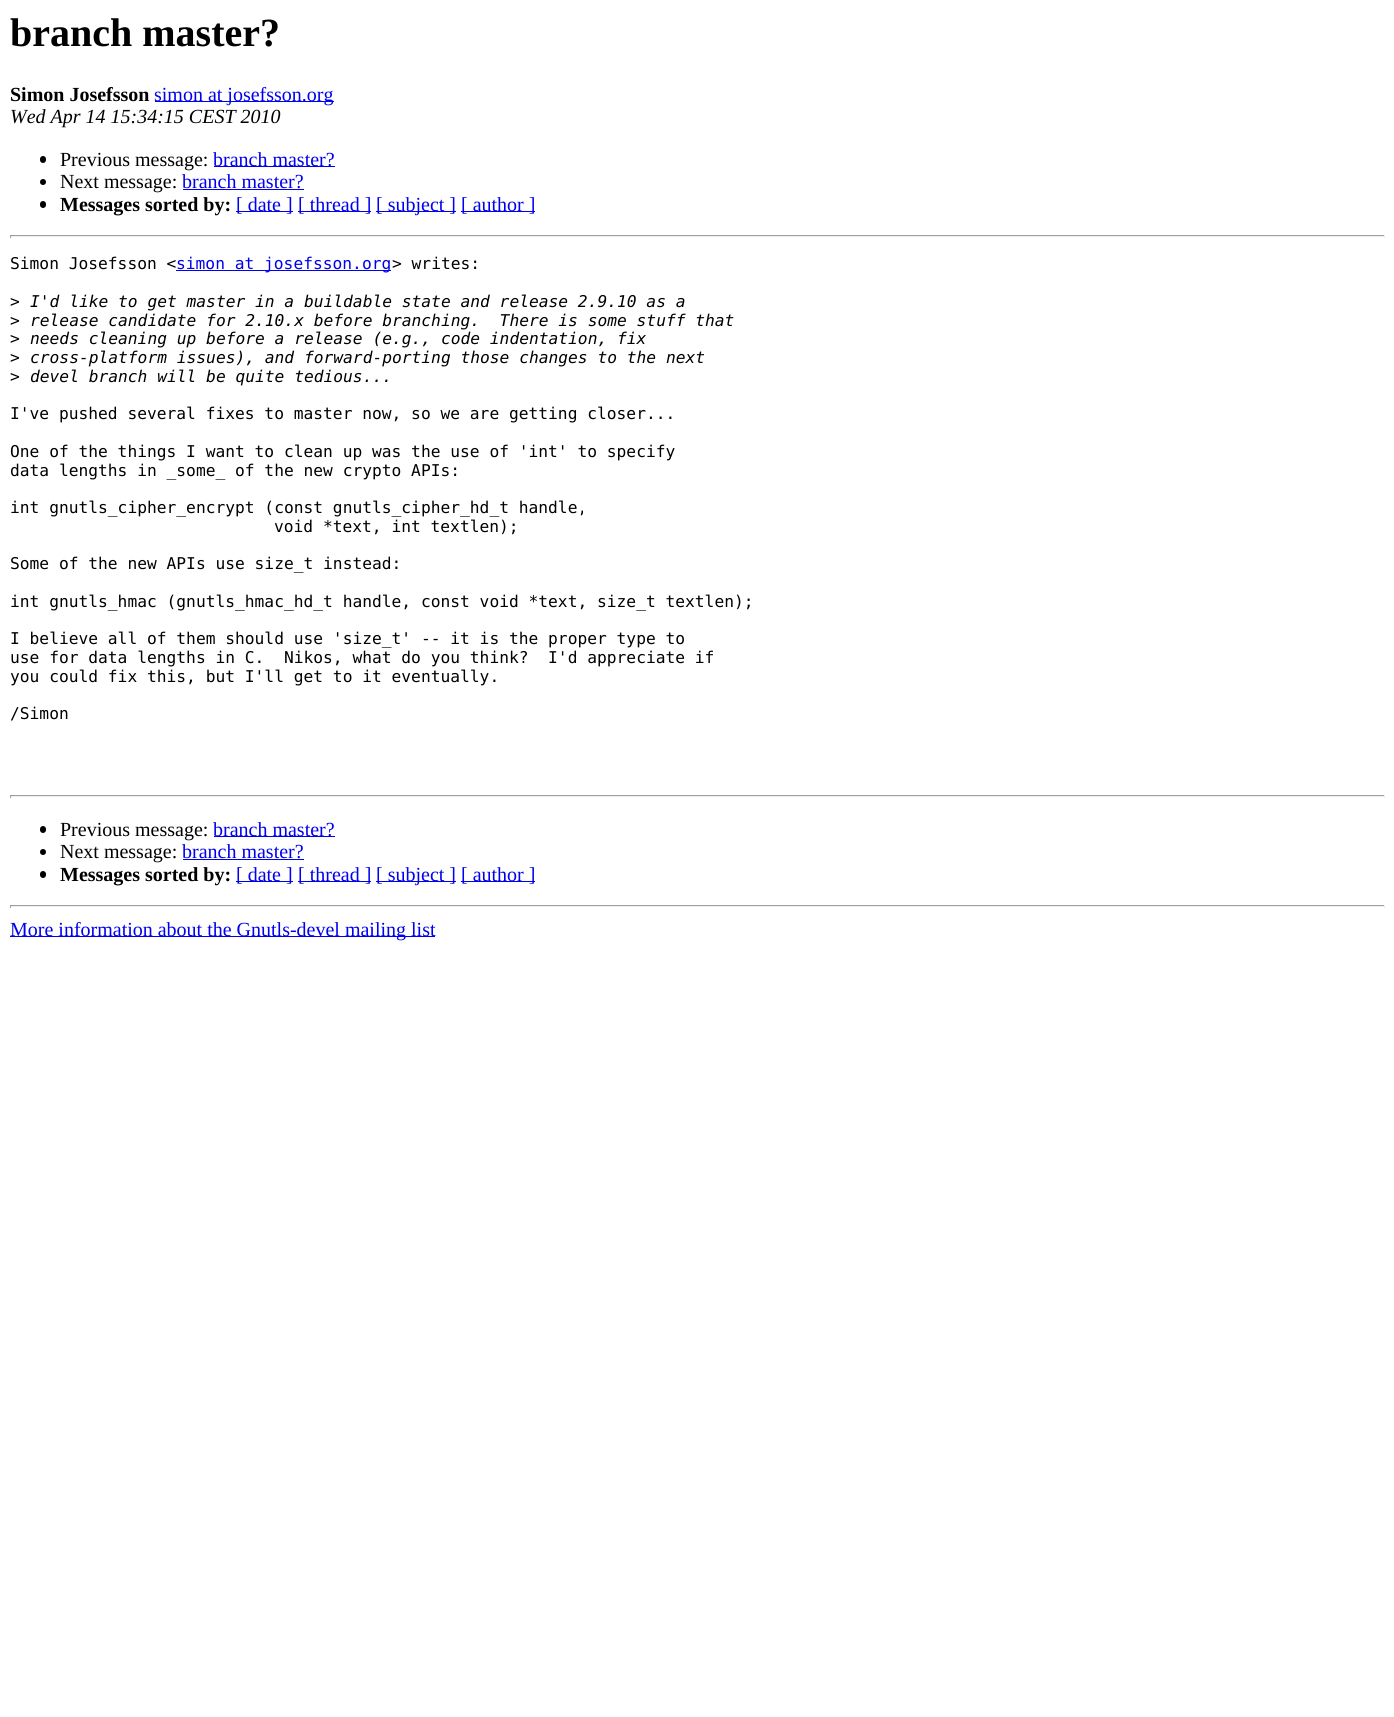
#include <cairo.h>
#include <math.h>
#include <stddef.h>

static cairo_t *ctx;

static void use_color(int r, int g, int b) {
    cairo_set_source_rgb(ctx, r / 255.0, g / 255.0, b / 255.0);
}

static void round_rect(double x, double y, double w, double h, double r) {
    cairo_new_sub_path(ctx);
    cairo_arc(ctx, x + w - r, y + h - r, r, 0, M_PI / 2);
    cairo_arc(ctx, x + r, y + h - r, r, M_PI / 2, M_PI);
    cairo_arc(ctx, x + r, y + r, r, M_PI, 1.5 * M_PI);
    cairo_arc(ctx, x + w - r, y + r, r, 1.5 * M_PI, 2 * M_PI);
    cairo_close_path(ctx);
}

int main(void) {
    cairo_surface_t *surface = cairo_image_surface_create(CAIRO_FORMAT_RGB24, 1394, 1717);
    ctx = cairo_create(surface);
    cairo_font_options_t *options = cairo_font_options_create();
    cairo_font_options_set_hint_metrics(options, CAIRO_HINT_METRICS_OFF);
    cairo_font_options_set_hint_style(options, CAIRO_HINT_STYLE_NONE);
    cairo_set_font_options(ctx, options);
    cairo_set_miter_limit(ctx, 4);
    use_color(255, 255, 255);
    cairo_paint(ctx);
    cairo_select_font_face(ctx, "Liberation Serif", CAIRO_FONT_SLANT_NORMAL, CAIRO_FONT_WEIGHT_BOLD);
    cairo_set_font_size(ctx, 40);
    use_color(0, 0, 0);
    cairo_move_to(ctx, 10, 46);
    cairo_show_text(ctx, "branch master?");
    cairo_set_font_size(ctx, 20);
    cairo_move_to(ctx, 10, 101);
    cairo_show_text(ctx, "Simon Josefsson");
    use_color(0, 0, 238);
    cairo_rectangle(ctx, 155, 101, 179, 1);
    cairo_fill(ctx);
    cairo_select_font_face(ctx, "Liberation Serif", CAIRO_FONT_SLANT_NORMAL, CAIRO_FONT_WEIGHT_NORMAL);
    cairo_move_to(ctx, 154, 101);
    cairo_show_text(ctx, "simon at josefsson.org");
    cairo_select_font_face(ctx, "Liberation Serif", CAIRO_FONT_SLANT_ITALIC, CAIRO_FONT_WEIGHT_NORMAL);
    use_color(0, 0, 0);
    cairo_move_to(ctx, 10, 123);
    cairo_show_text(ctx, "Wed Apr 14 15:34:15 CEST 2010");
    round_rect(40, 156, 6, 7, 3);
    cairo_fill(ctx);
    cairo_select_font_face(ctx, "Liberation Serif", CAIRO_FONT_SLANT_NORMAL, CAIRO_FONT_WEIGHT_NORMAL);
    cairo_move_to(ctx, 60, 166);
    cairo_show_text(ctx, "Previous message:");
    use_color(0, 0, 238);
    cairo_rectangle(ctx, 214, 166, 121, 1);
    cairo_fill(ctx);
    cairo_move_to(ctx, 213, 166);
    cairo_show_text(ctx, "branch master?");
    use_color(0, 0, 0);
    cairo_new_path(ctx);
    cairo_arc(ctx, 43, 182, 3, 0, 2 * M_PI);
    cairo_fill(ctx);
    cairo_move_to(ctx, 60, 188);
    cairo_show_text(ctx, "Next message:");
    use_color(0, 0, 238);
    cairo_move_to(ctx, 182, 188);
    cairo_show_text(ctx, "branch master?");
    cairo_rectangle(ctx, 183, 189, 121, 1);
    cairo_fill(ctx);
    use_color(0, 0, 0);
    round_rect(40, 201, 6, 7, 3);
    cairo_fill(ctx);
    cairo_select_font_face(ctx, "Liberation Serif", CAIRO_FONT_SLANT_NORMAL, CAIRO_FONT_WEIGHT_BOLD);
    cairo_move_to(ctx, 60, 211);
    cairo_show_text(ctx, "Messages sorted by:");
    use_color(0, 0, 238);
    cairo_rectangle(ctx, 236, 211, 57, 1);
    cairo_fill(ctx);
    cairo_select_font_face(ctx, "Liberation Serif", CAIRO_FONT_SLANT_NORMAL, CAIRO_FONT_WEIGHT_NORMAL);
    cairo_move_to(ctx, 236, 211);
    cairo_show_text(ctx, "[ date ]");
    cairo_rectangle(ctx, 298, 211, 73, 1);
    cairo_fill(ctx);
    cairo_move_to(ctx, 298, 211);
    cairo_show_text(ctx, "[ thread ]");
    cairo_rectangle(ctx, 376, 211, 80, 1);
    cairo_fill(ctx);
    cairo_move_to(ctx, 376, 211);
    cairo_show_text(ctx, "[ subject ]");
    cairo_rectangle(ctx, 461, 211, 74, 1);
    cairo_fill(ctx);
    cairo_move_to(ctx, 461, 211);
    cairo_show_text(ctx, "[ author ]");
    use_color(159, 159, 159);
    cairo_rectangle(ctx, 10, 235, 1375, 1);
    cairo_fill(ctx);
    use_color(238, 238, 238);
    cairo_rectangle(ctx, 1384, 235, 1, 3);
    cairo_fill(ctx);
    cairo_rectangle(ctx, 10, 236, 1375, 1);
    cairo_fill(ctx);
    use_color(159, 159, 159);
    cairo_rectangle(ctx, 10, 235, 1, 3);
    cairo_fill(ctx);
    cairo_select_font_face(ctx, "DejaVu Sans Mono", CAIRO_FONT_SLANT_NORMAL, CAIRO_FONT_WEIGHT_NORMAL);
    cairo_set_font_size(ctx, 16.25);
    use_color(0, 0, 0);
    cairo_move_to(ctx, 10, 269);
    cairo_show_text(ctx, "Simon Josefsson <");
    use_color(0, 0, 238);
    cairo_rectangle(ctx, 176, 270, 215, 1);
    cairo_fill(ctx);
    cairo_move_to(ctx, 176, 269);
    cairo_show_text(ctx, "simon at josefsson.org");
    use_color(0, 0, 0);
    cairo_move_to(ctx, 392, 269);
    cairo_show_text(ctx, "> writes:");
    cairo_move_to(ctx, 10, 307);
    cairo_show_text(ctx, ">");
    cairo_select_font_face(ctx, "DejaVu Sans Mono", CAIRO_FONT_SLANT_ITALIC, CAIRO_FONT_WEIGHT_NORMAL);
    cairo_move_to(ctx, 30, 307);
    cairo_show_text(ctx, "I'd like to get master in a buildable state and release 2.9.10 as a");
    cairo_select_font_face(ctx, "DejaVu Sans Mono", CAIRO_FONT_SLANT_NORMAL, CAIRO_FONT_WEIGHT_NORMAL);
    cairo_move_to(ctx, 10, 326);
    cairo_show_text(ctx, ">");
    cairo_select_font_face(ctx, "DejaVu Sans Mono", CAIRO_FONT_SLANT_ITALIC, CAIRO_FONT_WEIGHT_NORMAL);
    cairo_move_to(ctx, 30, 326);
    cairo_show_text(ctx, "release candidate for 2.10.x before branching.  There is some stuff that");
    cairo_select_font_face(ctx, "DejaVu Sans Mono", CAIRO_FONT_SLANT_NORMAL, CAIRO_FONT_WEIGHT_NORMAL);
    cairo_move_to(ctx, 10, 344);
    cairo_show_text(ctx, ">");
    cairo_select_font_face(ctx, "DejaVu Sans Mono", CAIRO_FONT_SLANT_ITALIC, CAIRO_FONT_WEIGHT_NORMAL);
    cairo_move_to(ctx, 30, 344);
    cairo_show_text(ctx, "needs cleaning up before a release (e.g., code indentation, fix");
    cairo_select_font_face(ctx, "DejaVu Sans Mono", CAIRO_FONT_SLANT_NORMAL, CAIRO_FONT_WEIGHT_NORMAL);
    cairo_move_to(ctx, 10, 363);
    cairo_show_text(ctx, ">");
    cairo_select_font_face(ctx, "DejaVu Sans Mono", CAIRO_FONT_SLANT_ITALIC, CAIRO_FONT_WEIGHT_NORMAL);
    cairo_move_to(ctx, 30, 363);
    cairo_show_text(ctx, "cross-platform issues), and forward-porting those changes to the next");
    cairo_select_font_face(ctx, "DejaVu Sans Mono", CAIRO_FONT_SLANT_NORMAL, CAIRO_FONT_WEIGHT_NORMAL);
    cairo_move_to(ctx, 10, 382);
    cairo_show_text(ctx, ">");
    cairo_select_font_face(ctx, "DejaVu Sans Mono", CAIRO_FONT_SLANT_ITALIC, CAIRO_FONT_WEIGHT_NORMAL);
    cairo_move_to(ctx, 30, 382);
    cairo_show_text(ctx, "devel branch will be quite tedious...");
    cairo_select_font_face(ctx, "DejaVu Sans Mono", CAIRO_FONT_SLANT_NORMAL, CAIRO_FONT_WEIGHT_NORMAL);
    cairo_move_to(ctx, 10, 419);
    cairo_show_text(ctx, "I've pushed several fixes to master now, so we are getting closer...");
    cairo_move_to(ctx, 10, 457);
    cairo_show_text(ctx, "One of the things I want to clean up was the use of 'int' to specify");
    cairo_move_to(ctx, 10, 476);
    cairo_show_text(ctx, "data lengths in _some_ of the new crypto APIs:");
    cairo_move_to(ctx, 10, 513);
    cairo_show_text(ctx, "int gnutls_cipher_encrypt (const gnutls_cipher_hd_t handle,");
    cairo_move_to(ctx, 274, 532);
    cairo_show_text(ctx, "void *text, int textlen);");
    cairo_move_to(ctx, 10, 569);
    cairo_show_text(ctx, "Some of the new APIs use size_t instead:");
    cairo_move_to(ctx, 10, 607);
    cairo_show_text(ctx, "int gnutls_hmac (gnutls_hmac_hd_t handle, const void *text, size_t textlen);");
    cairo_move_to(ctx, 10, 644);
    cairo_show_text(ctx, "I believe all of them should use 'size_t' -- it is the proper type to");
    cairo_move_to(ctx, 10, 663);
    cairo_show_text(ctx, "use for data lengths in C.  Nikos, what do you think?  I'd appreciate if");
    cairo_move_to(ctx, 10, 682);
    cairo_show_text(ctx, "you could fix this, but I'll get to it eventually.");
    cairo_move_to(ctx, 10, 719);
    cairo_show_text(ctx, "/Simon");
    use_color(159, 159, 159);
    cairo_rectangle(ctx, 10, 795, 1375, 1);
    cairo_fill(ctx);
    use_color(238, 238, 238);
    cairo_rectangle(ctx, 1384, 795, 1, 3);
    cairo_fill(ctx);
    cairo_rectangle(ctx, 10, 796, 1375, 1);
    cairo_fill(ctx);
    use_color(159, 159, 159);
    cairo_rectangle(ctx, 10, 795, 1, 3);
    cairo_fill(ctx);
    use_color(0, 0, 0);
    round_rect(40, 826, 6, 7, 3);
    cairo_fill(ctx);
    cairo_select_font_face(ctx, "Liberation Serif", CAIRO_FONT_SLANT_NORMAL, CAIRO_FONT_WEIGHT_NORMAL);
    cairo_set_font_size(ctx, 20);
    cairo_move_to(ctx, 60, 836);
    cairo_show_text(ctx, "Previous message:");
    use_color(0, 0, 238);
    cairo_rectangle(ctx, 214, 836, 121, 1);
    cairo_fill(ctx);
    cairo_move_to(ctx, 213, 836);
    cairo_show_text(ctx, "branch master?");
    use_color(0, 0, 0);
    cairo_new_path(ctx);
    cairo_arc(ctx, 43, 852, 3, 0, 2 * M_PI);
    cairo_fill(ctx);
    cairo_move_to(ctx, 60, 858);
    cairo_show_text(ctx, "Next message:");
    use_color(0, 0, 238);
    cairo_move_to(ctx, 182, 858);
    cairo_show_text(ctx, "branch master?");
    cairo_rectangle(ctx, 183, 859, 121, 1);
    cairo_fill(ctx);
    use_color(0, 0, 0);
    round_rect(40, 871, 6, 7, 3);
    cairo_fill(ctx);
    cairo_select_font_face(ctx, "Liberation Serif", CAIRO_FONT_SLANT_NORMAL, CAIRO_FONT_WEIGHT_BOLD);
    cairo_move_to(ctx, 60, 881);
    cairo_show_text(ctx, "Messages sorted by:");
    use_color(0, 0, 238);
    cairo_rectangle(ctx, 236, 881, 57, 1);
    cairo_fill(ctx);
    cairo_select_font_face(ctx, "Liberation Serif", CAIRO_FONT_SLANT_NORMAL, CAIRO_FONT_WEIGHT_NORMAL);
    cairo_move_to(ctx, 236, 881);
    cairo_show_text(ctx, "[ date ]");
    cairo_rectangle(ctx, 298, 881, 73, 1);
    cairo_fill(ctx);
    cairo_move_to(ctx, 298, 881);
    cairo_show_text(ctx, "[ thread ]");
    cairo_rectangle(ctx, 376, 881, 80, 1);
    cairo_fill(ctx);
    cairo_move_to(ctx, 376, 881);
    cairo_show_text(ctx, "[ subject ]");
    cairo_rectangle(ctx, 461, 881, 74, 1);
    cairo_fill(ctx);
    cairo_move_to(ctx, 461, 881);
    cairo_show_text(ctx, "[ author ]");
    use_color(159, 159, 159);
    cairo_rectangle(ctx, 10, 905, 1375, 1);
    cairo_fill(ctx);
    use_color(238, 238, 238);
    cairo_rectangle(ctx, 1384, 905, 1, 3);
    cairo_fill(ctx);
    cairo_rectangle(ctx, 10, 906, 1375, 1);
    cairo_fill(ctx);
    use_color(159, 159, 159);
    cairo_rectangle(ctx, 10, 905, 1, 3);
    cairo_fill(ctx);
    use_color(0, 0, 238);
    cairo_rectangle(ctx, 10, 936, 425, 1);
    cairo_fill(ctx);
    cairo_move_to(ctx, 10, 936);
    cairo_show_text(ctx, "More information about the Gnutls-devel mailing list");
    cairo_surface_write_to_png(surface, "result.png");
    cairo_font_options_destroy(options);
    cairo_destroy(ctx);
    cairo_surface_destroy(surface);
    return 0;
}
